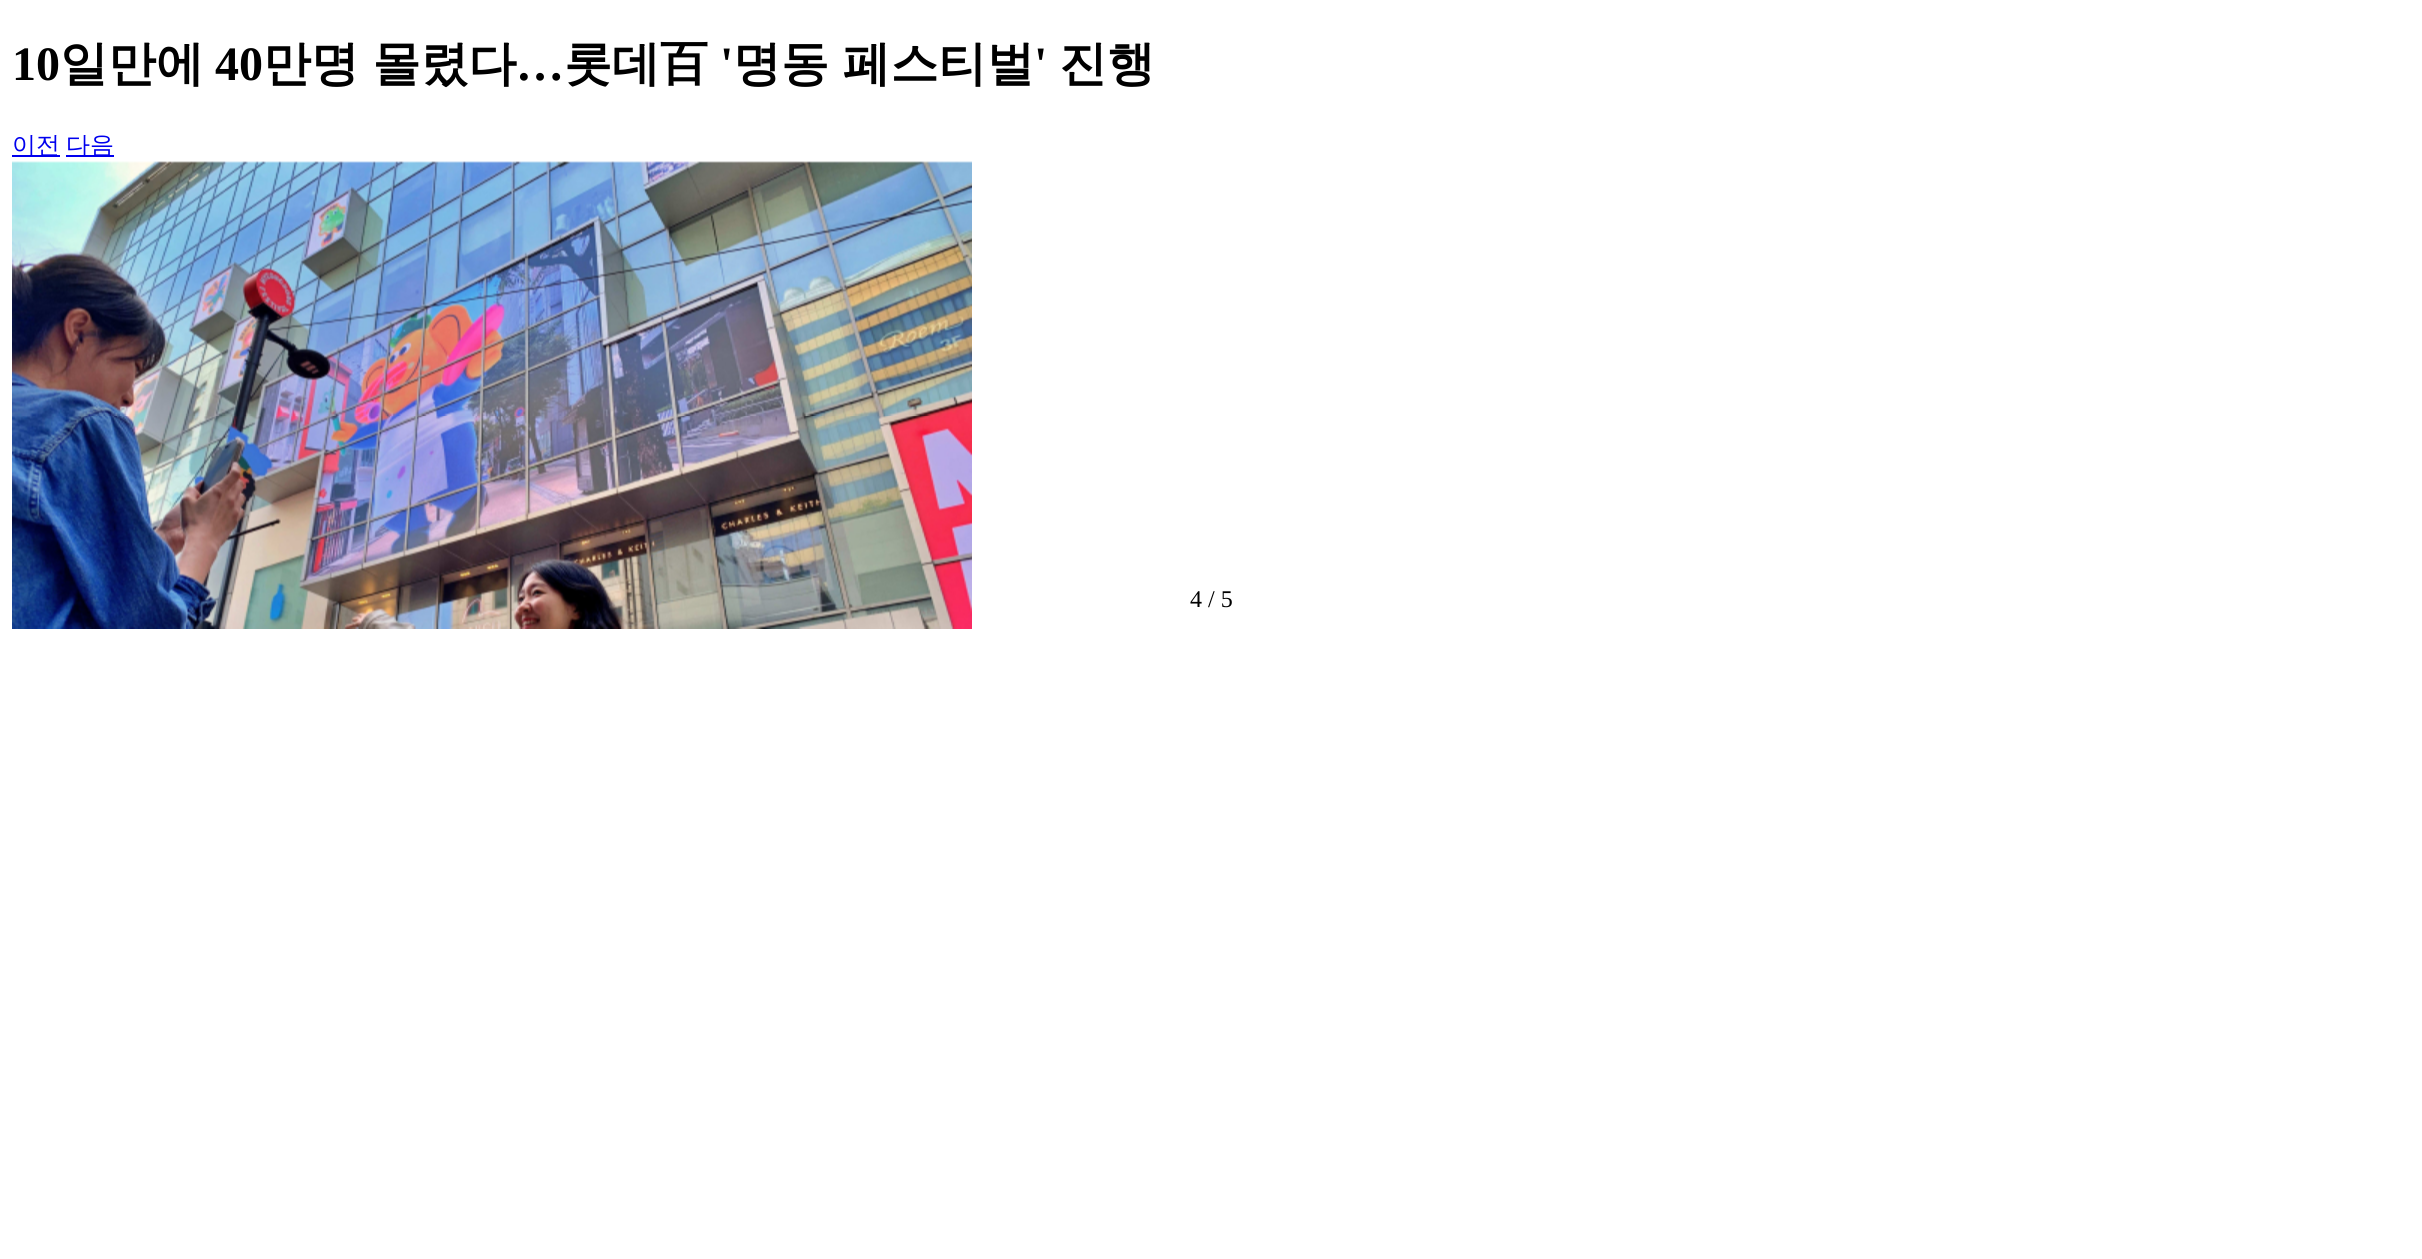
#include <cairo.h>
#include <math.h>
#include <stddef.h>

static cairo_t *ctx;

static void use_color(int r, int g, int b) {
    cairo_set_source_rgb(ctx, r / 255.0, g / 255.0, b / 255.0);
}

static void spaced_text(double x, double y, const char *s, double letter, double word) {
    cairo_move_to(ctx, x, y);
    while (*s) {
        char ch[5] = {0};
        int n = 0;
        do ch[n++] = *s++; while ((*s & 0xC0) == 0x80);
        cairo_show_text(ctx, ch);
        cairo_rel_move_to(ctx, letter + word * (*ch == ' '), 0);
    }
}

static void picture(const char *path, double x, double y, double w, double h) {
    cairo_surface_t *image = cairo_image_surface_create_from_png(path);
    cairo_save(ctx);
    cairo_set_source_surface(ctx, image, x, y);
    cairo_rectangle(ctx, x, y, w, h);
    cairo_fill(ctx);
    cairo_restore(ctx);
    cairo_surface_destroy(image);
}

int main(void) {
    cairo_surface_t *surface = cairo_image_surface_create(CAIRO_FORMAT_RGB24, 2422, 1259);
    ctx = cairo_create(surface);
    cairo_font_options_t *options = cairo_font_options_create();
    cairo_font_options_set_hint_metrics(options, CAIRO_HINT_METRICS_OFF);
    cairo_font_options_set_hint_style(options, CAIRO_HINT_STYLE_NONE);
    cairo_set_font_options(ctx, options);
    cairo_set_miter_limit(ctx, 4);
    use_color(255, 255, 255);
    cairo_paint(ctx);
    cairo_select_font_face(ctx, "Liberation Serif", CAIRO_FONT_SLANT_NORMAL, CAIRO_FONT_WEIGHT_BOLD);
    cairo_set_font_size(ctx, 48);
    use_color(0, 0, 0);
    cairo_move_to(ctx, 12, 80);
    cairo_show_text(ctx, "10");
    cairo_select_font_face(ctx, "WenQuanYi Zen Hei", CAIRO_FONT_SLANT_NORMAL, CAIRO_FONT_WEIGHT_BOLD);
    cairo_move_to(ctx, 60, 80);
    cairo_show_text(ctx, "일만에");
    cairo_select_font_face(ctx, "Liberation Serif", CAIRO_FONT_SLANT_NORMAL, CAIRO_FONT_WEIGHT_BOLD);
    cairo_move_to(ctx, 215, 80);
    cairo_show_text(ctx, "40");
    cairo_select_font_face(ctx, "WenQuanYi Zen Hei", CAIRO_FONT_SLANT_NORMAL, CAIRO_FONT_WEIGHT_BOLD);
    spaced_text(263, 80, "만명 몰렸다", 0, -1);
    cairo_move_to(ctx, 564, 80);
    cairo_show_text(ctx, "롯데百");
    cairo_select_font_face(ctx, "Liberation Serif", CAIRO_FONT_SLANT_NORMAL, CAIRO_FONT_WEIGHT_BOLD);
    cairo_move_to(ctx, 720, 80);
    cairo_show_text(ctx, "'");
    cairo_select_font_face(ctx, "WenQuanYi Zen Hei", CAIRO_FONT_SLANT_NORMAL, CAIRO_FONT_WEIGHT_BOLD);
    spaced_text(733, 80, "명동 페스티벌", 0, -1);
    cairo_select_font_face(ctx, "Liberation Serif", CAIRO_FONT_SLANT_NORMAL, CAIRO_FONT_WEIGHT_BOLD);
    cairo_move_to(ctx, 1034, 80);
    cairo_show_text(ctx, "'");
    cairo_select_font_face(ctx, "WenQuanYi Zen Hei", CAIRO_FONT_SLANT_NORMAL, CAIRO_FONT_WEIGHT_BOLD);
    cairo_move_to(ctx, 1059, 80);
    cairo_show_text(ctx, "진행");
    cairo_select_font_face(ctx, "Liberation Serif", CAIRO_FONT_SLANT_NORMAL, CAIRO_FONT_WEIGHT_BOLD);
    cairo_move_to(ctx, 516, 80);
    cairo_show_text(ctx, "…");
    use_color(0, 0, 238);
    cairo_rectangle(ctx, 12, 155, 48, 2);
    cairo_fill(ctx);
    cairo_select_font_face(ctx, "WenQuanYi Zen Hei Medium", CAIRO_FONT_SLANT_NORMAL, CAIRO_FONT_WEIGHT_NORMAL);
    cairo_set_font_size(ctx, 24);
    cairo_move_to(ctx, 12, 153);
    cairo_show_text(ctx, "이전");
    cairo_rectangle(ctx, 66, 155, 48, 2);
    cairo_fill(ctx);
    cairo_move_to(ctx, 66, 153);
    cairo_show_text(ctx, "다음");
    picture("img1.png", 12, 161, 960, 468);
    cairo_select_font_face(ctx, "Liberation Serif", CAIRO_FONT_SLANT_NORMAL, CAIRO_FONT_WEIGHT_NORMAL);
    use_color(0, 0, 0);
    cairo_move_to(ctx, 1190, 607);
    cairo_show_text(ctx, "4 / 5");
    cairo_surface_write_to_png(surface, "result.png");
    cairo_font_options_destroy(options);
    cairo_destroy(ctx);
    cairo_surface_destroy(surface);
    return 0;
}
